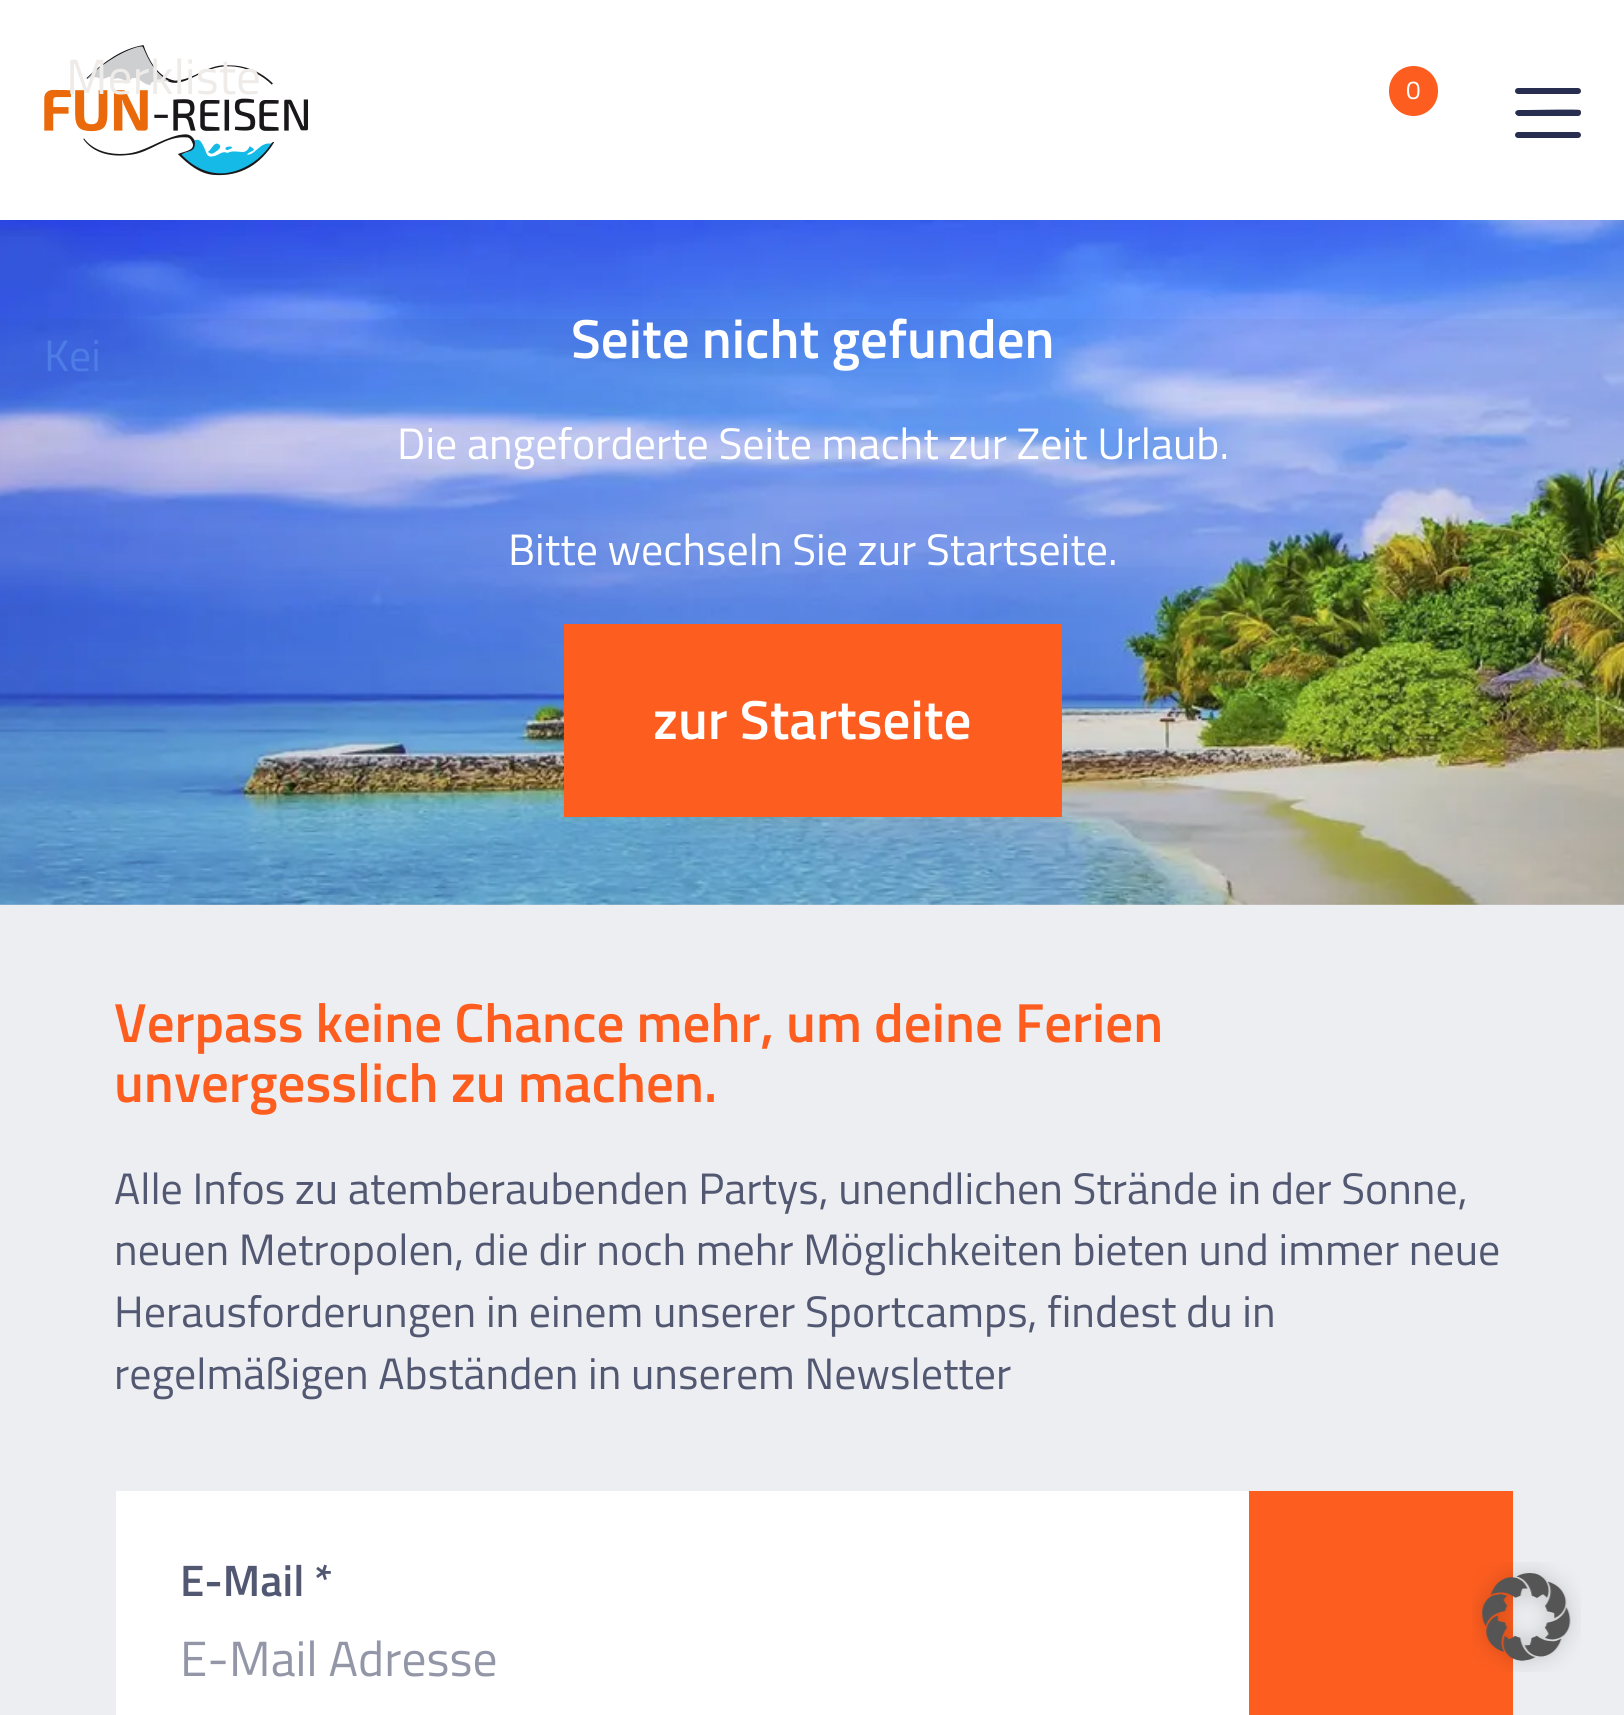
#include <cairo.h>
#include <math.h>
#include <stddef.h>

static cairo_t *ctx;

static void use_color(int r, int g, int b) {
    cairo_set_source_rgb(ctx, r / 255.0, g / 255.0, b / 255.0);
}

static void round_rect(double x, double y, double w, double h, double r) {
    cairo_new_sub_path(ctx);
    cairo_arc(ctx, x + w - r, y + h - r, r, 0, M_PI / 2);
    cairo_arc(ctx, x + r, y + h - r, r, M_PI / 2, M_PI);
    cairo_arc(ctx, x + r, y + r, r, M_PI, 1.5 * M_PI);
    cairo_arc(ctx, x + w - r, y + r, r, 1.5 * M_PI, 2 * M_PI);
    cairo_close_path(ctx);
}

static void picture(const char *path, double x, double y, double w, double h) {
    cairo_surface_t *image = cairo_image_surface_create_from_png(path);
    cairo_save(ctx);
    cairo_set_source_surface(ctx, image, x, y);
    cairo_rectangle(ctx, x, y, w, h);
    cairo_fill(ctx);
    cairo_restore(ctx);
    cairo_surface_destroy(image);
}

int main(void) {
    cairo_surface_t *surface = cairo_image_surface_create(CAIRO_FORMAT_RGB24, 1624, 1715);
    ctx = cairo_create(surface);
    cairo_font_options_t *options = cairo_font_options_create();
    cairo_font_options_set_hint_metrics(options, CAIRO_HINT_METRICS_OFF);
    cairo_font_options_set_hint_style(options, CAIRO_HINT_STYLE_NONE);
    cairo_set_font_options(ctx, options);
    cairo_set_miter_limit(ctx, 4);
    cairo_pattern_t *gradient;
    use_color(255, 255, 255);
    cairo_paint(ctx);
    picture("img1.png", 44, 45, 264, 131);
    cairo_select_font_face(ctx, "Titillium Web", CAIRO_FONT_SLANT_NORMAL, CAIRO_FONT_WEIGHT_NORMAL);
    cairo_set_font_size(ctx, 49.5);
    use_color(239, 235, 233);
    cairo_move_to(ctx, 66, 94);
    cairo_show_text(ctx, "Merkliste");
    picture("img2.png", 0, 220, 1624, 685);
    gradient = cairo_pattern_create_linear(813, 220, 813, 905);
    cairo_pattern_add_color_stop_rgba(gradient, 0, 0, 0, 0, 0);
    cairo_pattern_add_color_stop_rgba(gradient, 1, 0, 0, 0, 0.15);
    cairo_set_source(ctx, gradient);
    cairo_pattern_destroy(gradient);
    cairo_rectangle(ctx, 0, 319, 1624, 586);
    cairo_fill(ctx);
    cairo_set_font_size(ctx, 44);
    use_color(78, 124, 230);
    cairo_move_to(ctx, 44, 371);
    cairo_show_text(ctx, "Kei");
    use_color(253, 93, 31);
    round_rect(1389, 66, 49, 50, 24.5);
    cairo_fill(ctx);
    cairo_set_font_size(ctx, 26);
    use_color(255, 255, 255);
    cairo_move_to(ctx, 1406, 99);
    cairo_show_text(ctx, "0");
    use_color(39, 46, 79);
    round_rect(1515, 88, 66, 6, 3);
    cairo_fill(ctx);
    cairo_new_path(ctx);
    cairo_move_to(ctx, 1578, 116);
    cairo_line_to(ctx, 1518, 116);
    cairo_curve_to(ctx, 1516, 115, 1514, 113, 1516, 111);
    cairo_line_to(ctx, 1518, 110);
    cairo_line_to(ctx, 1528, 110);
    cairo_curve_to(ctx, 1534, 110, 1578, 109, 1580, 110);
    cairo_curve_to(ctx, 1582, 112, 1581, 116, 1578, 116);
    cairo_close_path(ctx);
    cairo_fill(ctx);
    round_rect(1515, 132, 66, 6, 3);
    cairo_fill(ctx);
    cairo_select_font_face(ctx, "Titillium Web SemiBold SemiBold", CAIRO_FONT_SLANT_NORMAL, CAIRO_FONT_WEIGHT_NORMAL);
    cairo_set_font_size(ctx, 55);
    use_color(255, 255, 255);
    cairo_move_to(ctx, 571, 358);
    cairo_show_text(ctx, "Seite nicht gefunden");
    cairo_select_font_face(ctx, "Titillium Web", CAIRO_FONT_SLANT_NORMAL, CAIRO_FONT_WEIGHT_NORMAL);
    cairo_set_font_size(ctx, 44);
    cairo_move_to(ctx, 397, 459);
    cairo_show_text(ctx, "Die angeforderte Seite macht zur Zeit Urlaub.");
    cairo_move_to(ctx, 508, 565);
    cairo_show_text(ctx, "Bitte wechseln Sie zur Startseite.");
    use_color(253, 93, 31);
    cairo_rectangle(ctx, 564, 624, 498, 193);
    cairo_fill(ctx);
    cairo_select_font_face(ctx, "Titillium Web SemiBold SemiBold", CAIRO_FONT_SLANT_NORMAL, CAIRO_FONT_WEIGHT_NORMAL);
    cairo_set_font_size(ctx, 55);
    use_color(255, 255, 255);
    cairo_move_to(ctx, 653, 739);
    cairo_show_text(ctx, "zur Startseite");
    use_color(237, 238, 241);
    cairo_rectangle(ctx, 0, 905, 1624, 810);
    cairo_fill(ctx);
    use_color(253, 93, 31);
    cairo_move_to(ctx, 114, 1042);
    cairo_show_text(ctx, "Verpass keine Chance mehr, um deine Ferien");
    cairo_move_to(ctx, 114, 1102);
    cairo_show_text(ctx, "unvergesslich zu machen.");
    cairo_select_font_face(ctx, "Titillium Web", CAIRO_FONT_SLANT_NORMAL, CAIRO_FONT_WEIGHT_NORMAL);
    cairo_set_font_size(ctx, 44);
    use_color(82, 88, 114);
    cairo_move_to(ctx, 114, 1204);
    cairo_show_text(ctx, "Alle Infos zu atemberaubenden Partys, unendlichen Strände in der Sonne,");
    cairo_move_to(ctx, 114, 1265);
    cairo_show_text(ctx, "neuen Metropolen, die dir noch mehr Möglichkeiten bieten und immer neue");
    cairo_move_to(ctx, 114, 1327);
    cairo_show_text(ctx, "Herausforderungen in einem unserer Sportcamps, findest du in");
    cairo_move_to(ctx, 114, 1389);
    cairo_show_text(ctx, "regelmäßigen Abständen in unserem Newsletter");
    use_color(255, 255, 255);
    cairo_rectangle(ctx, 116, 1491, 1133, 224);
    cairo_fill(ctx);
    cairo_select_font_face(ctx, "Titillium Web SemiBold SemiBold", CAIRO_FONT_SLANT_NORMAL, CAIRO_FONT_WEIGHT_NORMAL);
    use_color(82, 88, 114);
    cairo_move_to(ctx, 180, 1596);
    cairo_show_text(ctx, "E-Mail *");
    cairo_select_font_face(ctx, "Titillium Web", CAIRO_FONT_SLANT_NORMAL, CAIRO_FONT_WEIGHT_NORMAL);
    cairo_set_font_size(ctx, 49.5);
    use_color(147, 150, 167);
    cairo_move_to(ctx, 180, 1676);
    cairo_show_text(ctx, "E-Mail Adresse");
    use_color(253, 93, 31);
    cairo_rectangle(ctx, 1249, 1491, 264, 224);
    cairo_fill(ctx);
    picture("img3.png", 1472, 1562, 109, 110);
    cairo_surface_write_to_png(surface, "result.png");
    cairo_font_options_destroy(options);
    cairo_destroy(ctx);
    cairo_surface_destroy(surface);
    return 0;
}
